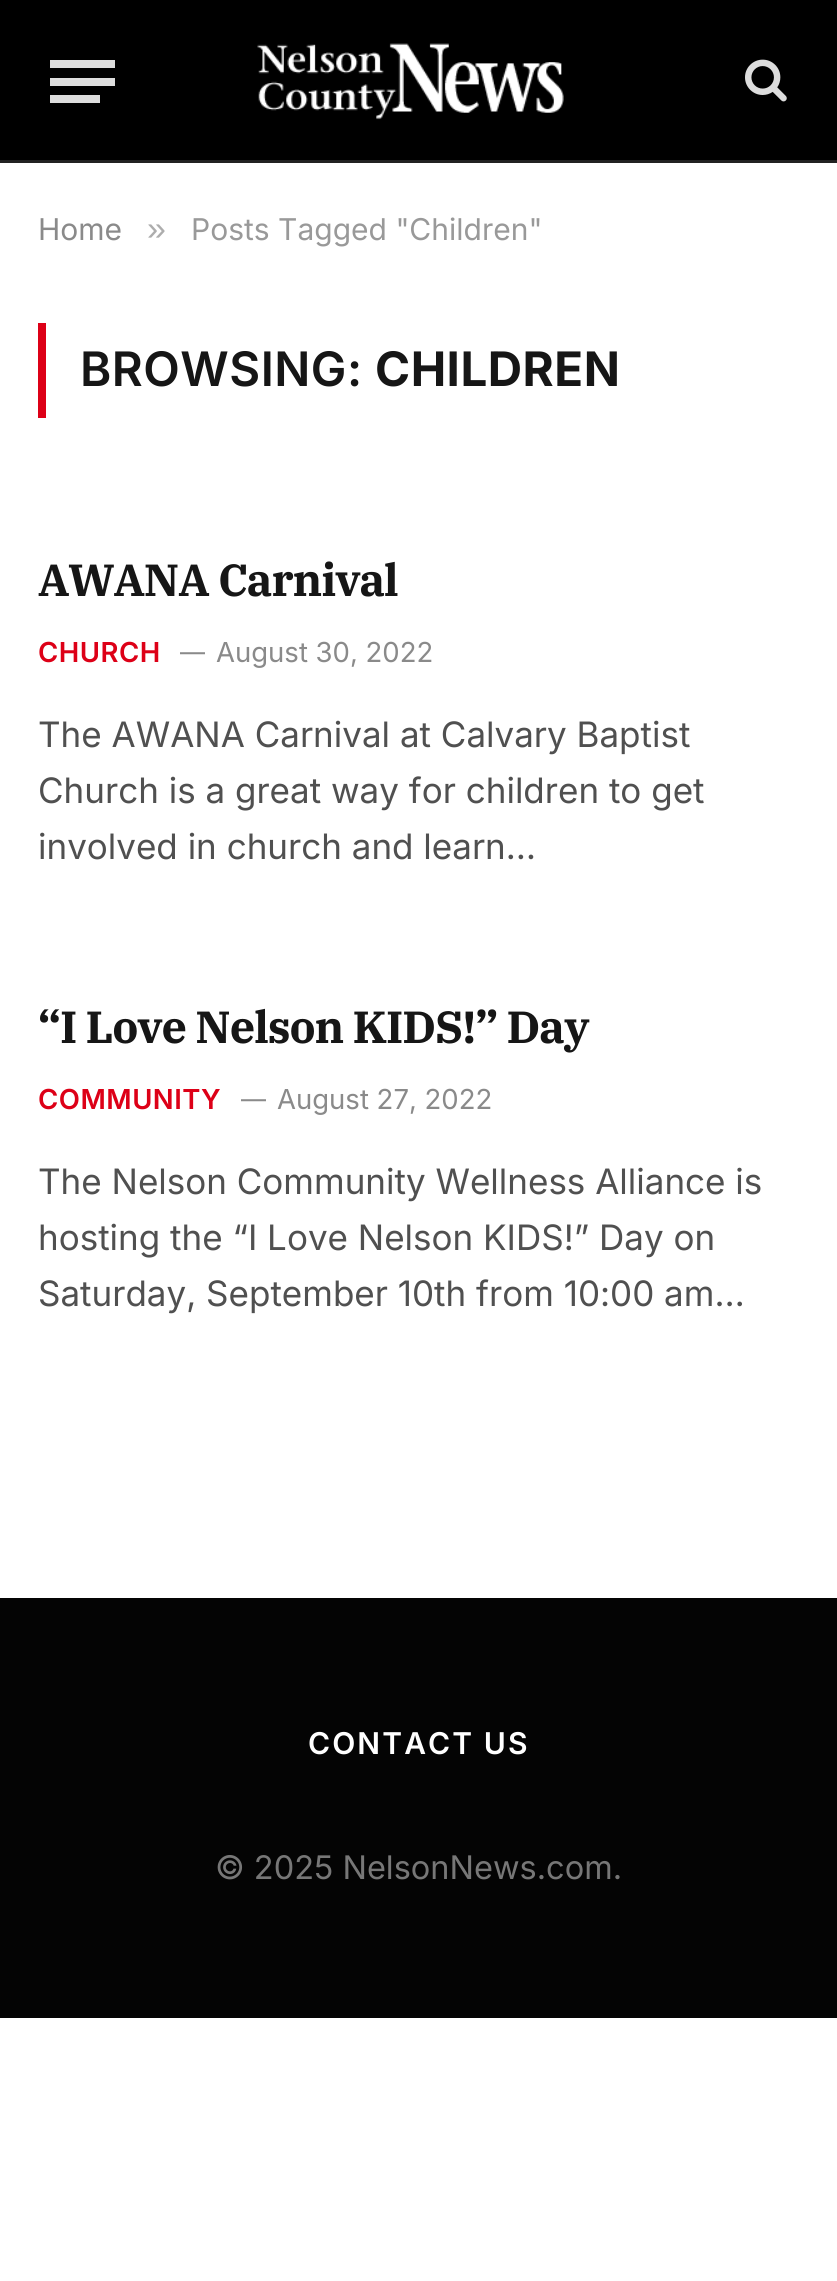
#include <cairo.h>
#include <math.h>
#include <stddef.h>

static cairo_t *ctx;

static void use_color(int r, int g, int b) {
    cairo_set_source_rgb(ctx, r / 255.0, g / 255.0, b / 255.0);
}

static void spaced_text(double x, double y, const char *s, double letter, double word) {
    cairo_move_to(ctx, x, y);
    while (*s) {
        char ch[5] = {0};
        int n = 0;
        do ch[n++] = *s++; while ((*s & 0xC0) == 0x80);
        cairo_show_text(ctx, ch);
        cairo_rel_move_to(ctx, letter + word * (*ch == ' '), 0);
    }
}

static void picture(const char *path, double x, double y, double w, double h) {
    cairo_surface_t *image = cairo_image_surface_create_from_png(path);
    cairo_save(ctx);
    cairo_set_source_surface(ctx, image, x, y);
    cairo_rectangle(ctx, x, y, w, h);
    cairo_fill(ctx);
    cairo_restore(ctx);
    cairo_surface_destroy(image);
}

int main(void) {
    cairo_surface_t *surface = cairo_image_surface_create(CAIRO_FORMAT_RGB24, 837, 2281);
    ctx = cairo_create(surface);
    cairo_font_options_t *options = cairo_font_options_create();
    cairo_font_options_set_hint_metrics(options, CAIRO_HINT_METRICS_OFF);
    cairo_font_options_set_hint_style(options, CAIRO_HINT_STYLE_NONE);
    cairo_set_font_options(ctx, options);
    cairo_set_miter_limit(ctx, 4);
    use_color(255, 255, 255);
    cairo_paint(ctx);
    use_color(0, 0, 0);
    cairo_rectangle(ctx, 0, 0, 837, 160);
    cairo_fill(ctx);
    use_color(34, 34, 34);
    cairo_rectangle(ctx, 0, 160, 837, 3);
    cairo_fill(ctx);
    use_color(221, 221, 221);
    cairo_rectangle(ctx, 50, 95, 50, 8);
    cairo_fill(ctx);
    cairo_rectangle(ctx, 50, 60, 65, 8);
    cairo_fill(ctx);
    cairo_rectangle(ctx, 50, 78, 65, 8);
    cairo_fill(ctx);
    picture("img1.png", 257, 43, 307, 77);
    picture("img2.png", 745, 59, 42, 43);
    cairo_select_font_face(ctx, "Inter", CAIRO_FONT_SLANT_NORMAL, CAIRO_FONT_WEIGHT_NORMAL);
    cairo_set_font_size(ctx, 30);
    use_color(138, 138, 138);
    cairo_move_to(ctx, 38, 240);
    cairo_show_text(ctx, "Home");
    cairo_select_font_face(ctx, "Liberation Sans", CAIRO_FONT_SLANT_NORMAL, CAIRO_FONT_WEIGHT_NORMAL);
    cairo_set_font_size(ctx, 34);
    use_color(173, 173, 173);
    cairo_move_to(ctx, 147, 240);
    cairo_show_text(ctx, "»");
    cairo_select_font_face(ctx, "Inter", CAIRO_FONT_SLANT_NORMAL, CAIRO_FONT_WEIGHT_NORMAL);
    cairo_set_font_size(ctx, 30);
    use_color(153, 153, 153);
    cairo_move_to(ctx, 191, 240);
    cairo_show_text(ctx, "Posts Tagged \"Children\"");
    use_color(221, 0, 23);
    cairo_rectangle(ctx, 38, 323, 8, 95);
    cairo_fill(ctx);
    cairo_select_font_face(ctx, "Inter SemiBold", CAIRO_FONT_SLANT_NORMAL, CAIRO_FONT_WEIGHT_NORMAL);
    cairo_set_font_size(ctx, 47.5);
    use_color(22, 22, 22);
    spaced_text(80, 386, "BROWSING:", 0.5, 0);
    cairo_select_font_face(ctx, "Inter", CAIRO_FONT_SLANT_NORMAL, CAIRO_FONT_WEIGHT_BOLD);
    spaced_text(375, 386, "CHILDREN", 0.5, 0);
    cairo_select_font_face(ctx, "IBM Plex Serif", CAIRO_FONT_SLANT_NORMAL, CAIRO_FONT_WEIGHT_BOLD);
    cairo_set_font_size(ctx, 45);
    spaced_text(38, 596, "AWANA Carnival", -1.1, 0);
    cairo_select_font_face(ctx, "Inter SemiBold", CAIRO_FONT_SLANT_NORMAL, CAIRO_FONT_WEIGHT_NORMAL);
    cairo_set_font_size(ctx, 27.5);
    use_color(221, 0, 23);
    spaced_text(38, 662, "CHURCH", 0.5, 0);
    cairo_select_font_face(ctx, "Inter", CAIRO_FONT_SLANT_NORMAL, CAIRO_FONT_WEIGHT_NORMAL);
    cairo_set_font_size(ctx, 25);
    use_color(138, 138, 138);
    cairo_move_to(ctx, 180, 661);
    cairo_show_text(ctx, "—");
    cairo_set_font_size(ctx, 27.5);
    cairo_move_to(ctx, 216, 662);
    cairo_show_text(ctx, "August 30, 2022");
    cairo_set_font_size(ctx, 35);
    use_color(80, 80, 80);
    cairo_move_to(ctx, 38, 747);
    cairo_show_text(ctx, "The AWANA Carnival at Calvary Baptist");
    cairo_move_to(ctx, 38, 803);
    cairo_show_text(ctx, "Church is a great way for children to get");
    cairo_move_to(ctx, 38, 859);
    cairo_show_text(ctx, "involved in church and learn…");
    cairo_select_font_face(ctx, "IBM Plex Serif", CAIRO_FONT_SLANT_NORMAL, CAIRO_FONT_WEIGHT_BOLD);
    cairo_set_font_size(ctx, 45);
    use_color(22, 22, 22);
    spaced_text(38, 1043, "“I Love Nelson KIDS!” Day", -1.1, 0);
    cairo_select_font_face(ctx, "Inter SemiBold", CAIRO_FONT_SLANT_NORMAL, CAIRO_FONT_WEIGHT_NORMAL);
    cairo_set_font_size(ctx, 27.5);
    use_color(221, 0, 23);
    spaced_text(38, 1109, "COMMUNITY", 0.5, 0);
    cairo_select_font_face(ctx, "Inter", CAIRO_FONT_SLANT_NORMAL, CAIRO_FONT_WEIGHT_NORMAL);
    cairo_set_font_size(ctx, 25);
    use_color(138, 138, 138);
    cairo_move_to(ctx, 241, 1108);
    cairo_show_text(ctx, "—");
    cairo_set_font_size(ctx, 27.5);
    cairo_move_to(ctx, 277, 1109);
    cairo_show_text(ctx, "August 27, 2022");
    cairo_set_font_size(ctx, 35);
    use_color(80, 80, 80);
    cairo_move_to(ctx, 38, 1194);
    cairo_show_text(ctx, "The Nelson Community Wellness Alliance is");
    cairo_move_to(ctx, 38, 1250);
    cairo_show_text(ctx, "hosting the “I Love Nelson KIDS!” Day on");
    cairo_move_to(ctx, 38, 1306);
    cairo_show_text(ctx, "Saturday, September 10th from 10:00 am…");
    use_color(4, 4, 4);
    cairo_rectangle(ctx, 0, 1598, 837, 420);
    cairo_fill(ctx);
    cairo_select_font_face(ctx, "Inter SemiBold", CAIRO_FONT_SLANT_NORMAL, CAIRO_FONT_WEIGHT_NORMAL);
    cairo_set_font_size(ctx, 30);
    use_color(255, 255, 255);
    spaced_text(308, 1754, "CONTACT US", 2.1, 0);
    cairo_select_font_face(ctx, "Inter", CAIRO_FONT_SLANT_NORMAL, CAIRO_FONT_WEIGHT_NORMAL);
    cairo_set_font_size(ctx, 32.5);
    use_color(119, 119, 119);
    cairo_move_to(ctx, 215, 1879);
    cairo_show_text(ctx, "© 2025 NelsonNews.com.");
    cairo_surface_write_to_png(surface, "result.png");
    cairo_font_options_destroy(options);
    cairo_destroy(ctx);
    cairo_surface_destroy(surface);
    return 0;
}
